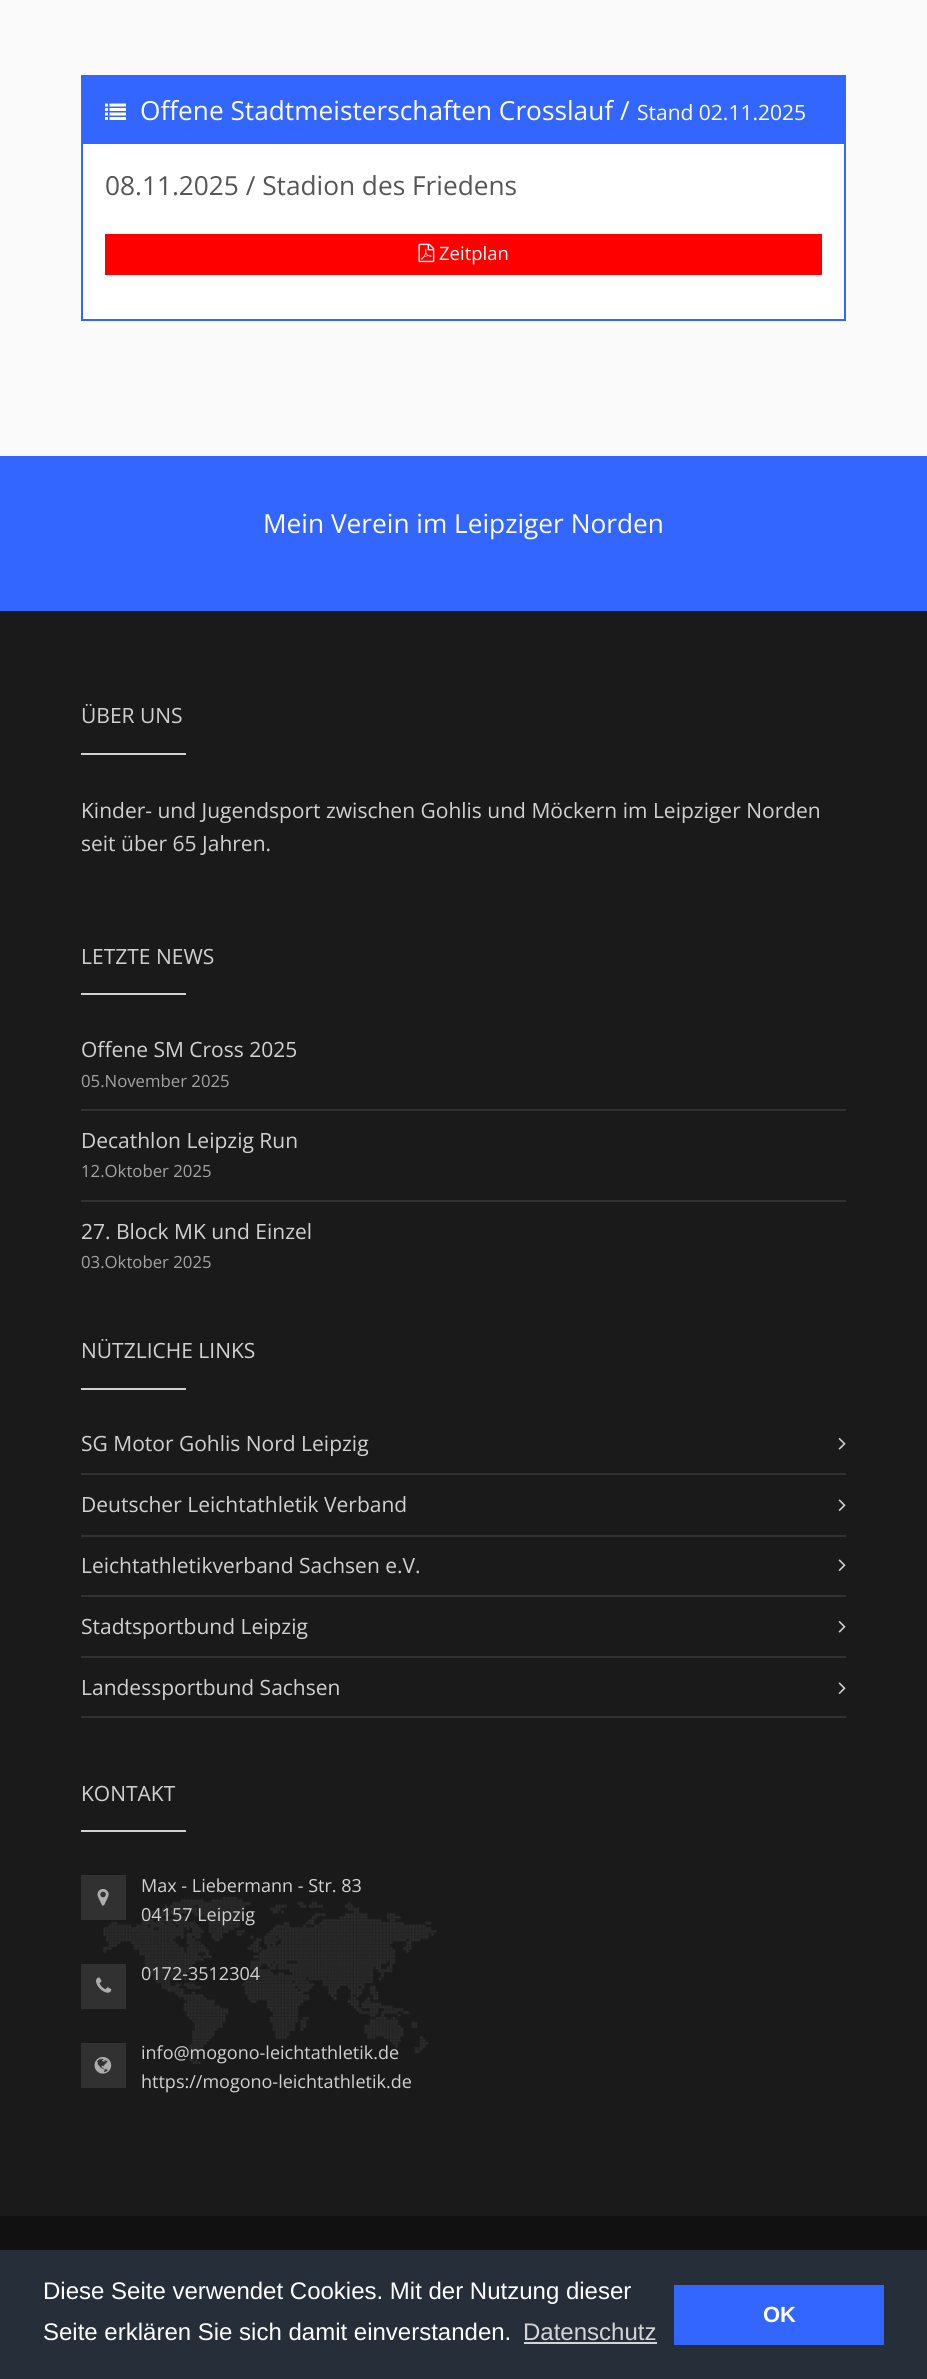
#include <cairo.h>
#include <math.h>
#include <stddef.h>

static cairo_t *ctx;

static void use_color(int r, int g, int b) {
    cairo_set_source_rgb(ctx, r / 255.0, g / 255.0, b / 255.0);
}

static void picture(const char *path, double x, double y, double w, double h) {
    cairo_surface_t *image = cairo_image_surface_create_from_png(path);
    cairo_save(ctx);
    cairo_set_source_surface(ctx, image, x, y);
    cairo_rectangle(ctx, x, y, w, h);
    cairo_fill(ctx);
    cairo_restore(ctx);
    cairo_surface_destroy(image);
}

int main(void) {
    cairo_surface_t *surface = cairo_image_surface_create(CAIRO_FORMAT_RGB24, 927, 2379);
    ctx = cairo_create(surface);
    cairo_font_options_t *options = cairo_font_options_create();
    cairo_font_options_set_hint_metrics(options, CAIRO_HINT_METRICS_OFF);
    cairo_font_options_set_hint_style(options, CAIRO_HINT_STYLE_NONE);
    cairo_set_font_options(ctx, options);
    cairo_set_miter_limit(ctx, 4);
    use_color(250, 250, 250);
    cairo_paint(ctx);
    use_color(255, 255, 255);
    cairo_rectangle(ctx, 83, 144, 761, 175);
    cairo_fill(ctx);
    cairo_rectangle(ctx, 82, 76, 763, 244);
    use_color(51, 102, 255);
    cairo_stroke(ctx);
    cairo_rectangle(ctx, 83, 77, 761, 67);
    cairo_fill(ctx);
    picture("img1.png", 105, 103, 21, 17);
    cairo_select_font_face(ctx, "Open Sans", CAIRO_FONT_SLANT_NORMAL, CAIRO_FONT_WEIGHT_NORMAL);
    cairo_set_font_size(ctx, 26.25);
    use_color(255, 255, 255);
    cairo_move_to(ctx, 140, 120);
    cairo_show_text(ctx, "Offene Stadtmeisterschaften Crosslauf /");
    cairo_set_font_size(ctx, 21);
    cairo_move_to(ctx, 637, 120);
    cairo_show_text(ctx, "Stand 02.11.2025");
    cairo_set_font_size(ctx, 26.25);
    use_color(85, 85, 85);
    cairo_move_to(ctx, 105, 195);
    cairo_show_text(ctx, "08.11.2025 / Stadion des Friedens");
    use_color(255, 0, 0);
    cairo_rectangle(ctx, 105, 234, 717, 41);
    cairo_fill(ctx);
    picture("img2.png", 418, 243, 17, 20);
    cairo_set_font_size(ctx, 18.5);
    use_color(255, 255, 255);
    cairo_move_to(ctx, 439, 260);
    cairo_show_text(ctx, "Zeitplan");
    use_color(51, 102, 255);
    cairo_rectangle(ctx, 0, 456, 927, 155);
    cairo_fill(ctx);
    cairo_set_font_size(ctx, 26.25);
    use_color(255, 255, 255);
    cairo_move_to(ctx, 263, 533);
    cairo_show_text(ctx, "Mein Verein im Leipziger Norden");
    use_color(26, 26, 26);
    cairo_rectangle(ctx, 0, 611, 927, 1605);
    cairo_fill(ctx);
    cairo_set_font_size(ctx, 21);
    use_color(209, 209, 209);
    cairo_move_to(ctx, 81, 723);
    cairo_show_text(ctx, "ÜBER UNS");
    cairo_rectangle(ctx, 81, 753, 105, 2);
    cairo_fill(ctx);
    cairo_move_to(ctx, 81, 818);
    cairo_show_text(ctx, "Kinder- und Jugendsport zwischen Gohlis und Möckern im Leipziger Norden");
    cairo_move_to(ctx, 81, 851);
    cairo_show_text(ctx, "seit über 65 Jahren.");
    cairo_move_to(ctx, 81, 964);
    cairo_show_text(ctx, "LETZTE NEWS");
    cairo_rectangle(ctx, 81, 993, 105, 2);
    cairo_fill(ctx);
    cairo_move_to(ctx, 81, 1057);
    cairo_show_text(ctx, "Offene SM Cross 2025");
    cairo_set_font_size(ctx, 16.75);
    use_color(163, 163, 163);
    cairo_move_to(ctx, 81, 1087);
    cairo_show_text(ctx, "05.November 2025");
    use_color(49, 49, 49);
    cairo_rectangle(ctx, 81, 1109, 765, 2);
    cairo_fill(ctx);
    cairo_set_font_size(ctx, 21);
    use_color(209, 209, 209);
    cairo_move_to(ctx, 81, 1148);
    cairo_show_text(ctx, "Decathlon Leipzig Run");
    cairo_set_font_size(ctx, 16.75);
    use_color(163, 163, 163);
    cairo_move_to(ctx, 81, 1177);
    cairo_show_text(ctx, "12.Oktober 2025");
    use_color(49, 49, 49);
    cairo_rectangle(ctx, 81, 1200, 765, 2);
    cairo_fill(ctx);
    cairo_set_font_size(ctx, 21);
    use_color(209, 209, 209);
    cairo_move_to(ctx, 81, 1239);
    cairo_show_text(ctx, "27. Block MK und Einzel");
    cairo_set_font_size(ctx, 16.75);
    use_color(163, 163, 163);
    cairo_move_to(ctx, 81, 1268);
    cairo_show_text(ctx, "03.Oktober 2025");
    cairo_set_font_size(ctx, 21);
    use_color(209, 209, 209);
    cairo_move_to(ctx, 81, 1358);
    cairo_show_text(ctx, "NÜTZLICHE LINKS");
    cairo_rectangle(ctx, 81, 1388, 105, 2);
    cairo_fill(ctx);
    use_color(49, 49, 49);
    cairo_rectangle(ctx, 81, 1473, 765, 2);
    cairo_fill(ctx);
    use_color(209, 209, 209);
    cairo_move_to(ctx, 81, 1451);
    cairo_show_text(ctx, "SG Motor Gohlis Nord Leipzig");
    picture("img3.png", 838, 1438, 8, 12);
    use_color(49, 49, 49);
    cairo_rectangle(ctx, 81, 1535, 765, 2);
    cairo_fill(ctx);
    use_color(209, 209, 209);
    cairo_move_to(ctx, 81, 1512);
    cairo_show_text(ctx, "Deutscher Leichtathletik Verband");
    picture("img4.png", 838, 1499, 8, 12);
    use_color(49, 49, 49);
    cairo_rectangle(ctx, 81, 1595, 765, 2);
    cairo_fill(ctx);
    use_color(209, 209, 209);
    cairo_move_to(ctx, 81, 1573);
    cairo_show_text(ctx, "Leichtathletikverband Sachsen e.V.");
    picture("img4.png", 838, 1559, 8, 12);
    use_color(49, 49, 49);
    cairo_rectangle(ctx, 81, 1656, 765, 2);
    cairo_fill(ctx);
    use_color(209, 209, 209);
    cairo_move_to(ctx, 81, 1634);
    cairo_show_text(ctx, "Stadtsportbund Leipzig");
    picture("img3.png", 838, 1621, 8, 12);
    use_color(49, 49, 49);
    cairo_rectangle(ctx, 81, 1716, 765, 2);
    cairo_fill(ctx);
    use_color(209, 209, 209);
    cairo_move_to(ctx, 81, 1695);
    cairo_show_text(ctx, "Landessportbund Sachsen");
    picture("img4.png", 838, 1682, 8, 12);
    cairo_move_to(ctx, 81, 1801);
    cairo_show_text(ctx, "KONTAKT");
    cairo_rectangle(ctx, 81, 1830, 105, 2);
    cairo_fill(ctx);
    picture("img5.png", 103, 1897, 334, 167);
    use_color(49, 49, 49);
    cairo_rectangle(ctx, 81, 1875, 45, 45);
    cairo_fill(ctx);
    picture("img6.png", 97, 1889, 12, 17);
    cairo_set_font_size(ctx, 18);
    use_color(209, 209, 209);
    cairo_move_to(ctx, 141, 1892);
    cairo_show_text(ctx, "Max - Liebermann - Str. 83");
    cairo_move_to(ctx, 141, 1921);
    cairo_show_text(ctx, "04157 Leipzig");
    use_color(49, 49, 49);
    cairo_rectangle(ctx, 81, 1964, 45, 45);
    cairo_fill(ctx);
    picture("img7.png", 96, 1977, 16, 16);
    use_color(209, 209, 209);
    cairo_move_to(ctx, 141, 1980);
    cairo_show_text(ctx, "0172-3512304");
    use_color(49, 49, 49);
    cairo_rectangle(ctx, 81, 2043, 45, 45);
    cairo_fill(ctx);
    picture("img8.png", 94, 2057, 18, 17);
    use_color(209, 209, 209);
    cairo_move_to(ctx, 141, 2059);
    cairo_show_text(ctx, "info@mogono-leichtathletik.de");
    cairo_move_to(ctx, 141, 2088);
    cairo_show_text(ctx, "https://mogono-leichtathletik.de");
    use_color(17, 17, 17);
    cairo_rectangle(ctx, 0, 2216, 927, 34);
    cairo_fill(ctx);
    use_color(37, 46, 57);
    cairo_rectangle(ctx, 0, 2250, 927, 129);
    cairo_fill(ctx);
    cairo_select_font_face(ctx, "Liberation Sans", CAIRO_FONT_SLANT_NORMAL, CAIRO_FONT_WEIGHT_NORMAL);
    cairo_set_font_size(ctx, 24);
    use_color(255, 255, 255);
    cairo_move_to(ctx, 43, 2299);
    cairo_show_text(ctx, "Diese Seite verwendet Cookies. Mit der Nutzung dieser");
    cairo_move_to(ctx, 43, 2340);
    cairo_show_text(ctx, "Seite erklären Sie sich damit einverstanden.");
    use_color(211, 213, 215);
    cairo_move_to(ctx, 523, 2340);
    cairo_show_text(ctx, "Datenschutz");
    cairo_rectangle(ctx, 524, 2342, 133, 2);
    cairo_fill(ctx);
    use_color(51, 102, 255);
    cairo_rectangle(ctx, 674, 2285, 210, 60);
    cairo_fill(ctx);
    cairo_select_font_face(ctx, "Liberation Sans", CAIRO_FONT_SLANT_NORMAL, CAIRO_FONT_WEIGHT_BOLD);
    cairo_set_font_size(ctx, 22);
    use_color(255, 255, 255);
    cairo_move_to(ctx, 763, 2322);
    cairo_show_text(ctx, "OK");
    cairo_surface_write_to_png(surface, "result.png");
    cairo_font_options_destroy(options);
    cairo_destroy(ctx);
    cairo_surface_destroy(surface);
    return 0;
}
